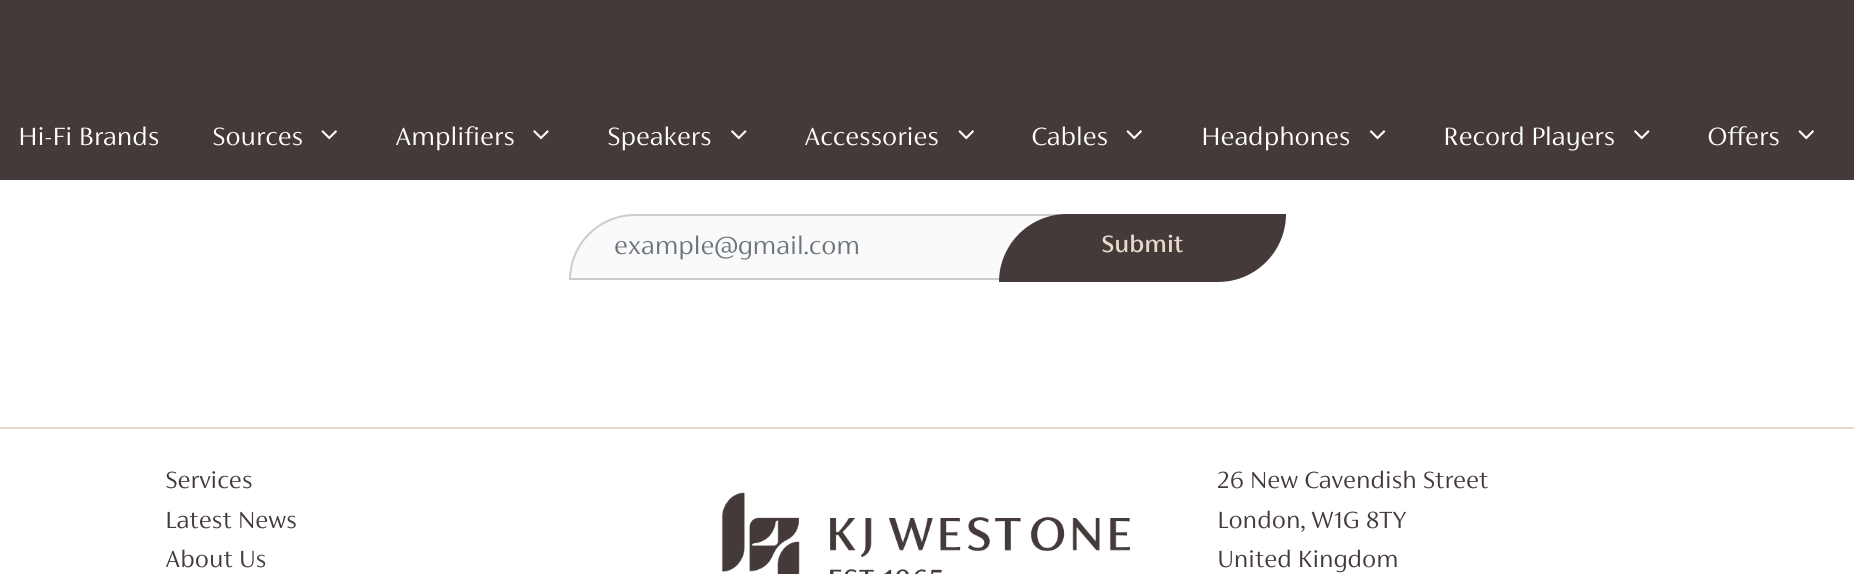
#include <cairo.h>
#include <math.h>
#include <stddef.h>

static cairo_t *ctx;

static void use_color(int r, int g, int b) {
    cairo_set_source_rgb(ctx, r / 255.0, g / 255.0, b / 255.0);
}

static void picture(const char *path, double x, double y, double w, double h) {
    cairo_surface_t *image = cairo_image_surface_create_from_png(path);
    cairo_save(ctx);
    cairo_set_source_surface(ctx, image, x, y);
    cairo_rectangle(ctx, x, y, w, h);
    cairo_fill(ctx);
    cairo_restore(ctx);
    cairo_surface_destroy(image);
}

int main(void) {
    cairo_surface_t *surface = cairo_image_surface_create(CAIRO_FORMAT_RGB24, 1854, 574);
    ctx = cairo_create(surface);
    cairo_font_options_t *options = cairo_font_options_create();
    cairo_font_options_set_hint_metrics(options, CAIRO_HINT_METRICS_OFF);
    cairo_font_options_set_hint_style(options, CAIRO_HINT_STYLE_NONE);
    cairo_set_font_options(ctx, options);
    cairo_set_miter_limit(ctx, 4);
    use_color(255, 255, 255);
    cairo_paint(ctx);
    use_color(68, 58, 57);
    cairo_rectangle(ctx, 0, 0, 1854, 180);
    cairo_fill(ctx);
    cairo_select_font_face(ctx, "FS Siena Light", CAIRO_FONT_SLANT_NORMAL, CAIRO_FONT_WEIGHT_NORMAL);
    cairo_set_font_size(ctx, 28);
    use_color(255, 255, 255);
    cairo_move_to(ctx, 18, 145);
    cairo_show_text(ctx, "Hi-Fi Brands");
    cairo_move_to(ctx, 212, 145);
    cairo_show_text(ctx, "Sources");
    picture("img1.png", 321, 130, 16, 10);
    cairo_move_to(ctx, 395, 145);
    cairo_show_text(ctx, "Amplifiers");
    picture("img2.png", 533, 130, 16, 10);
    cairo_move_to(ctx, 607, 145);
    cairo_show_text(ctx, "Speakers");
    picture("img3.png", 731, 130, 16, 10);
    cairo_move_to(ctx, 804, 145);
    cairo_show_text(ctx, "Accessories");
    picture("img1.png", 958, 130, 16, 10);
    cairo_move_to(ctx, 1031, 145);
    cairo_show_text(ctx, "Cables");
    picture("img1.png", 1126, 130, 16, 10);
    cairo_move_to(ctx, 1201, 145);
    cairo_show_text(ctx, "Headphones");
    picture("img4.png", 1369, 130, 17, 10);
    cairo_move_to(ctx, 1443, 145);
    cairo_show_text(ctx, "Record Players");
    picture("img3.png", 1634, 130, 16, 10);
    cairo_move_to(ctx, 1707, 145);
    cairo_show_text(ctx, "Offers");
    picture("img1.png", 1798, 130, 16, 10);
    use_color(250, 250, 250);
    cairo_new_path(ctx);
    cairo_move_to(ctx, 635, 215);
    cairo_line_to(ctx, 1247, 215);
    cairo_line_to(ctx, 1247, 214);
    cairo_curve_to(ctx, 1247, 250, 1218, 279, 1182, 279);
    cairo_line_to(ctx, 570, 279);
    cairo_line_to(ctx, 570, 280);
    cairo_curve_to(ctx, 570, 244, 599, 215, 635, 215);
    cairo_close_path(ctx);
    cairo_fill_preserve(ctx);
    use_color(204, 204, 204);
    cairo_stroke(ctx);
    use_color(108, 117, 125);
    cairo_move_to(ctx, 614, 254);
    cairo_show_text(ctx, "example@gmail.com");
    use_color(68, 58, 57);
    cairo_new_path(ctx);
    cairo_move_to(ctx, 1067, 214);
    cairo_line_to(ctx, 1286, 214);
    cairo_curve_to(ctx, 1286, 251.5, 1255.5, 282, 1218, 282);
    cairo_line_to(ctx, 999, 282);
    cairo_curve_to(ctx, 999, 244.5, 1029.5, 214, 1067, 214);
    cairo_close_path(ctx);
    cairo_fill(ctx);
    cairo_select_font_face(ctx, "FS Siena Medium", CAIRO_FONT_SLANT_NORMAL, CAIRO_FONT_WEIGHT_NORMAL);
    cairo_set_font_size(ctx, 26.25);
    use_color(230, 219, 201);
    cairo_move_to(ctx, 1101, 252);
    cairo_show_text(ctx, "Submit");
    cairo_rectangle(ctx, 0, 427, 1854, 2);
    cairo_fill(ctx);
    cairo_select_font_face(ctx, "FS Siena Light", CAIRO_FONT_SLANT_NORMAL, CAIRO_FONT_WEIGHT_NORMAL);
    use_color(68, 58, 57);
    cairo_move_to(ctx, 165, 488);
    cairo_show_text(ctx, "Services");
    cairo_move_to(ctx, 165, 528);
    cairo_show_text(ctx, "Latest News");
    cairo_move_to(ctx, 165, 567);
    cairo_show_text(ctx, "About Us");
    picture("img5.png", 721, 492, 409, 82);
    cairo_move_to(ctx, 1217, 488);
    cairo_show_text(ctx, "26 New Cavendish Street");
    cairo_move_to(ctx, 1217, 528);
    cairo_show_text(ctx, "London, W1G 8TY");
    cairo_move_to(ctx, 1217, 567);
    cairo_show_text(ctx, "United Kingdom");
    cairo_surface_write_to_png(surface, "result.png");
    cairo_font_options_destroy(options);
    cairo_destroy(ctx);
    cairo_surface_destroy(surface);
    return 0;
}
